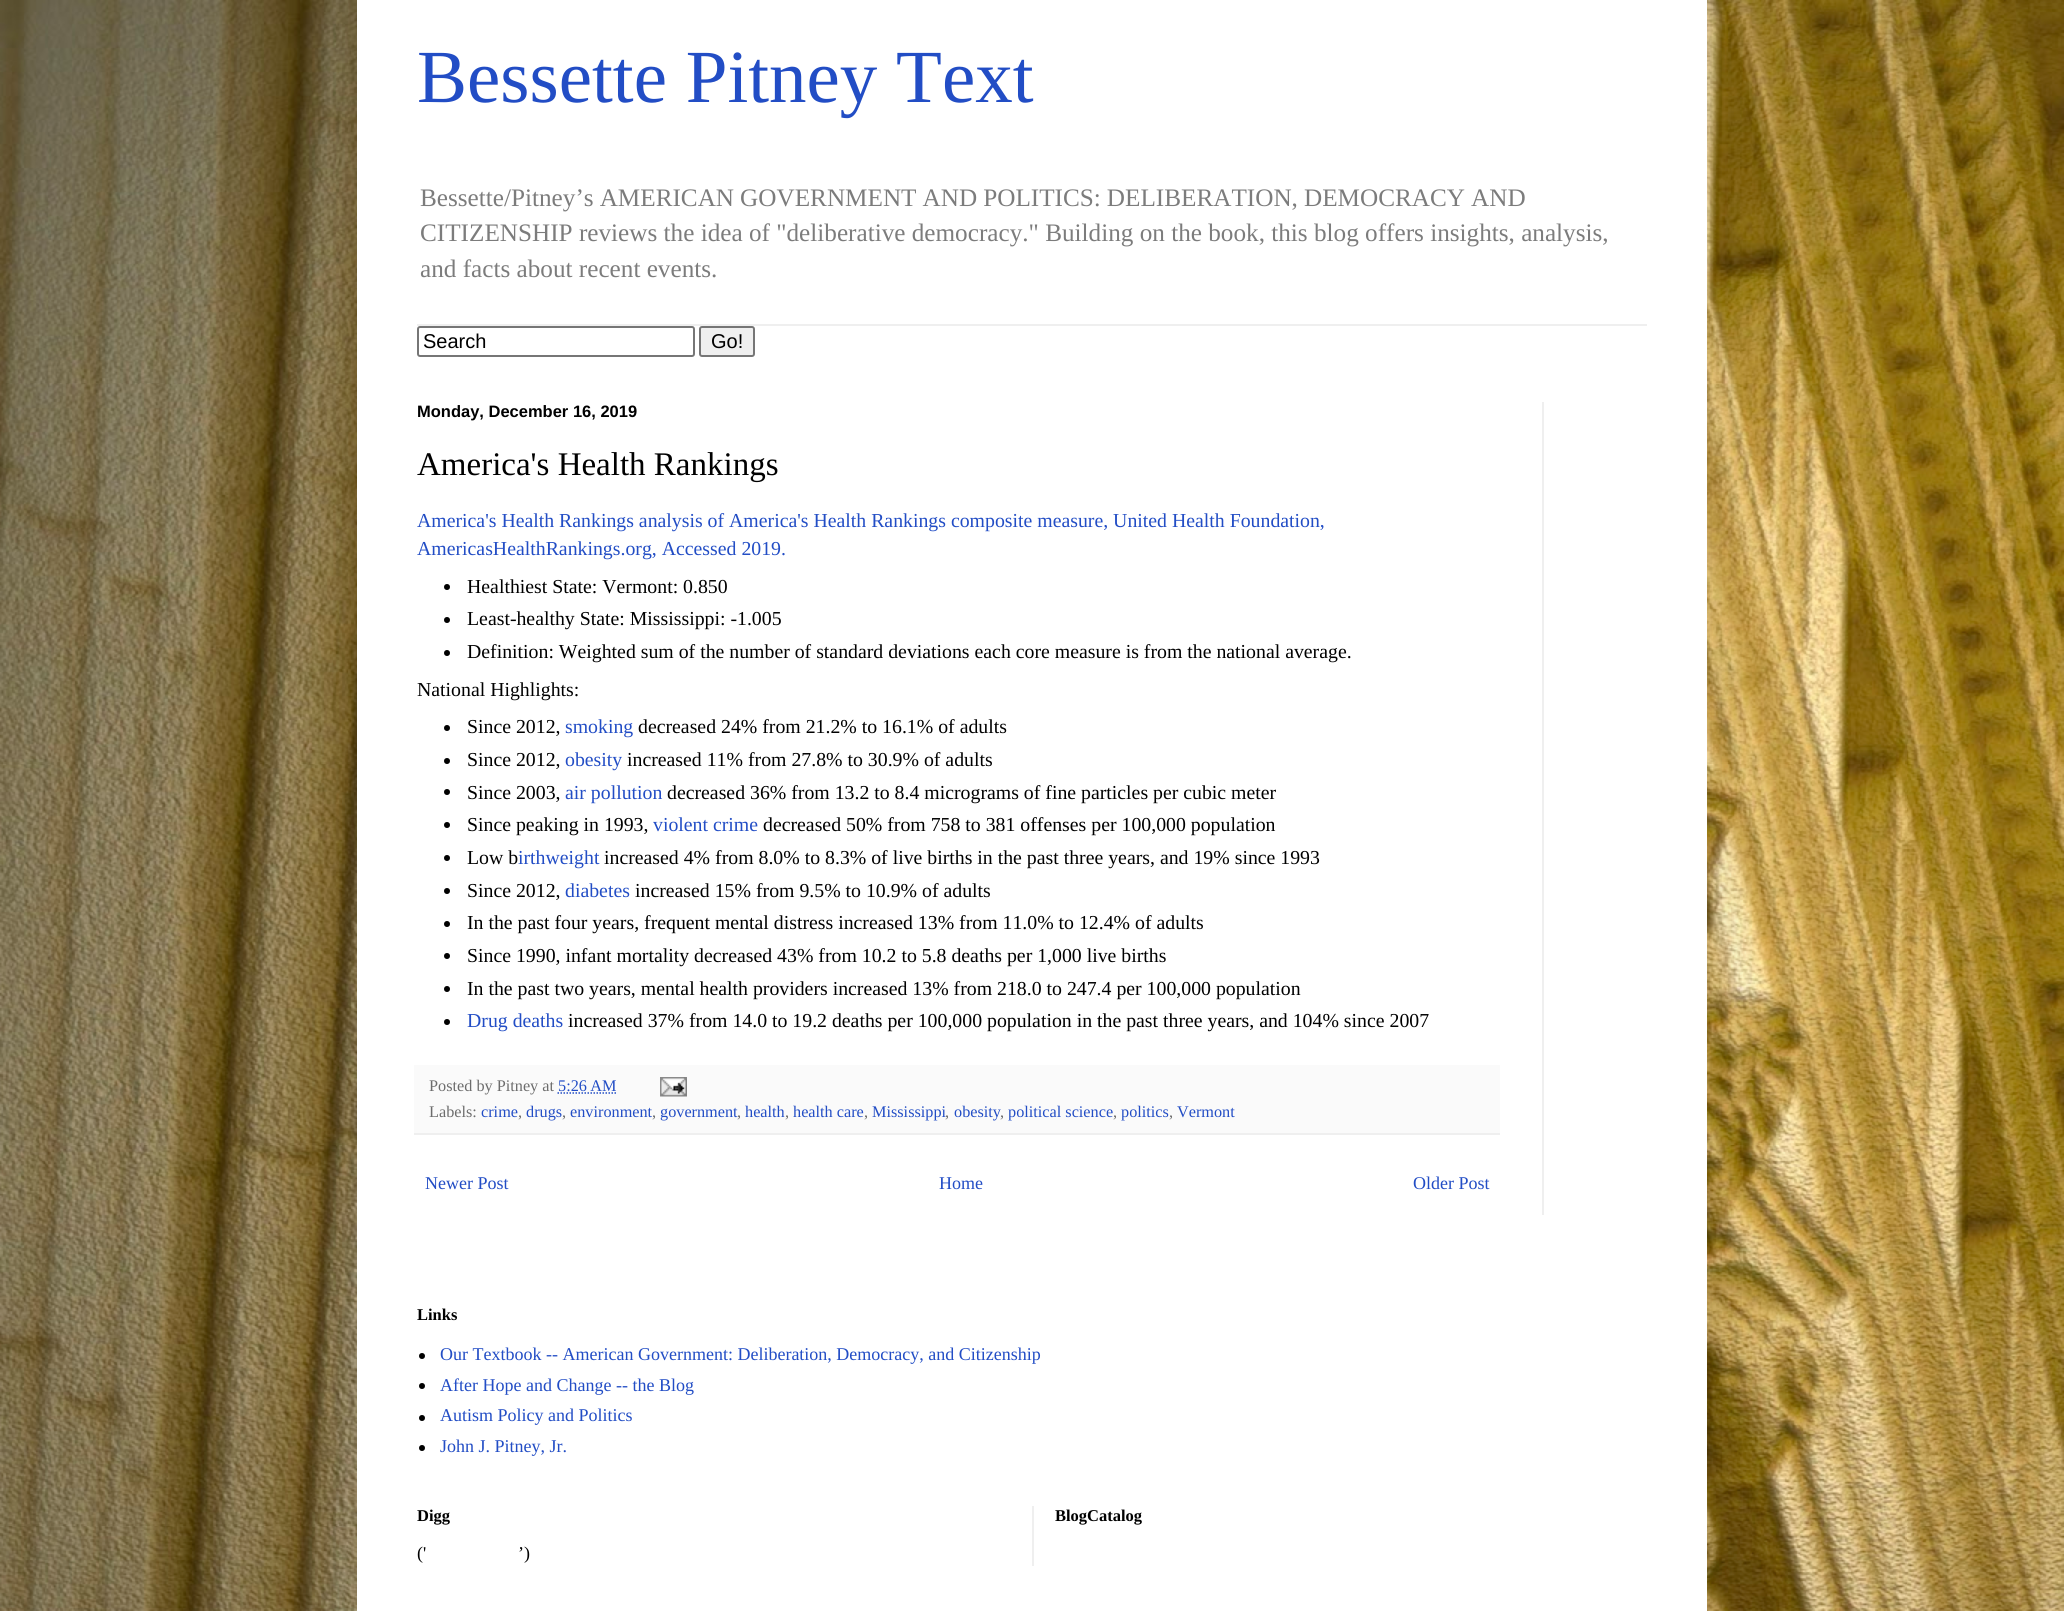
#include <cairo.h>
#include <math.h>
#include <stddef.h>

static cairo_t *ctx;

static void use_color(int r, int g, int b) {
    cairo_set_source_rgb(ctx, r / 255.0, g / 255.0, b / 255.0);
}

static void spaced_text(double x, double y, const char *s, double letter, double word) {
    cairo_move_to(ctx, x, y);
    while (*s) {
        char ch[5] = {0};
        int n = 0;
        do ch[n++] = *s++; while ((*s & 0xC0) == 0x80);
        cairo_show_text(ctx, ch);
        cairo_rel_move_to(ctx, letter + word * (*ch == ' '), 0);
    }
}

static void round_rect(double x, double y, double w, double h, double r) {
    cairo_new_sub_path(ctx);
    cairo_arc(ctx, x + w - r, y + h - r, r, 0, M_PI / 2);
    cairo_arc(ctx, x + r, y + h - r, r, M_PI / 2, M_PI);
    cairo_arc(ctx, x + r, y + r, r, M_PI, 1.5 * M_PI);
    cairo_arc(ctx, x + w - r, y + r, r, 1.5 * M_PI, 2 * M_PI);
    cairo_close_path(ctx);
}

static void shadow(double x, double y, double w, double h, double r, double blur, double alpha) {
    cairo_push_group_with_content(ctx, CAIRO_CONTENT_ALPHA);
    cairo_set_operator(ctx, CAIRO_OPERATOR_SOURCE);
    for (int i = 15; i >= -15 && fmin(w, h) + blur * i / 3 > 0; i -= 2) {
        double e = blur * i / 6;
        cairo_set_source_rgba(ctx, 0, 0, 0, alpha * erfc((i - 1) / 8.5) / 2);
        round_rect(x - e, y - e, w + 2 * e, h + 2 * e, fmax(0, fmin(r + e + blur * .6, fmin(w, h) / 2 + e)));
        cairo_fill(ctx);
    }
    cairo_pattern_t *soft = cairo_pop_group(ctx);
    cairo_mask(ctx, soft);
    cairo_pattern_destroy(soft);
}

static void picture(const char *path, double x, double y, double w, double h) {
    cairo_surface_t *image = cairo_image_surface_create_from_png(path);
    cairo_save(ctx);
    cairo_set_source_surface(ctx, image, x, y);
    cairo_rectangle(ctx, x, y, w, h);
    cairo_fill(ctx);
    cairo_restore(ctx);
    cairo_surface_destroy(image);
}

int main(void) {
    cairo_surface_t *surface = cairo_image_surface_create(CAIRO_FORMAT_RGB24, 2064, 1611);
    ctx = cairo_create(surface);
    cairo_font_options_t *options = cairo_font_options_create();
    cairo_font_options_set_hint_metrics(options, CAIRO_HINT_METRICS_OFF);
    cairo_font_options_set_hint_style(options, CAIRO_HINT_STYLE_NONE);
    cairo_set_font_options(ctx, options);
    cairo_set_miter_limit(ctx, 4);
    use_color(255, 255, 255);
    cairo_paint(ctx);
    picture("img1.png", 0, 0, 2064, 1611);
    use_color(0, 0, 0);
    shadow(357, -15, 1350, 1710, 0, 30, 0.15);
    use_color(255, 255, 255);
    cairo_rectangle(ctx, 357, 0, 1350, 1611);
    cairo_fill(ctx);
    cairo_select_font_face(ctx, "Liberation Serif", CAIRO_FONT_SLANT_NORMAL, CAIRO_FONT_WEIGHT_NORMAL);
    cairo_set_font_size(ctx, 75);
    use_color(34, 77, 197);
    cairo_move_to(ctx, 417, 102);
    cairo_show_text(ctx, "Bessette Pitney Text");
    cairo_set_font_size(ctx, 25.2);
    use_color(124, 124, 124);
    spaced_text(420, 206, "Bessette/Pitney’s AMERICAN GOVERNMENT AND POLITICS: DELIBERATION, DEMOCRACY AND", 0, -0.25);
    cairo_move_to(ctx, 420, 241);
    cairo_show_text(ctx, "CITIZENSHIP reviews the idea of \"deliberative democracy.\" Building on the book, this blog offers insights, analysis,");
    cairo_move_to(ctx, 420, 277);
    cairo_show_text(ctx, "and facts about recent events.");
    use_color(239, 239, 239);
    cairo_rectangle(ctx, 417, 324, 1230, 2);
    cairo_fill(ctx);
    round_rect(418, 327, 276, 29, 2);
    use_color(118, 118, 118);
    cairo_stroke(ctx);
    cairo_select_font_face(ctx, "Liberation Sans", CAIRO_FONT_SLANT_NORMAL, CAIRO_FONT_WEIGHT_NORMAL);
    cairo_set_font_size(ctx, 20);
    use_color(0, 0, 0);
    cairo_move_to(ctx, 423, 348);
    cairo_show_text(ctx, "Search");
    use_color(239, 239, 239);
    round_rect(700, 327, 54, 29, 2);
    cairo_fill_preserve(ctx);
    use_color(118, 118, 118);
    cairo_stroke(ctx);
    use_color(0, 0, 0);
    cairo_move_to(ctx, 711, 348);
    cairo_show_text(ctx, "Go!");
    cairo_select_font_face(ctx, "Liberation Sans", CAIRO_FONT_SLANT_NORMAL, CAIRO_FONT_WEIGHT_BOLD);
    cairo_set_font_size(ctx, 16.5);
    cairo_move_to(ctx, 417, 417);
    cairo_show_text(ctx, "Monday, December 16, 2019");
    cairo_select_font_face(ctx, "Liberation Serif", CAIRO_FONT_SLANT_NORMAL, CAIRO_FONT_WEIGHT_NORMAL);
    cairo_set_font_size(ctx, 33);
    cairo_move_to(ctx, 417, 475);
    cairo_show_text(ctx, "America's Health Rankings");
    cairo_set_font_size(ctx, 19.8);
    use_color(34, 77, 197);
    cairo_move_to(ctx, 417, 527);
    cairo_show_text(ctx, "America's Health Rankings analysis of America's Health Rankings composite measure, United Health Foundation,");
    cairo_move_to(ctx, 417, 555);
    cairo_show_text(ctx, "AmericasHealthRankings.org, Accessed 2019.");
    use_color(0, 0, 0);
    cairo_new_path(ctx);
    cairo_arc(ctx, 447, 587, 3, 0, 2 * M_PI);
    cairo_fill(ctx);
    cairo_move_to(ctx, 467, 593);
    cairo_show_text(ctx, "Healthiest State: Vermont: 0.850");
    cairo_new_path(ctx);
    cairo_arc(ctx, 447, 620, 3, 0, 2 * M_PI);
    cairo_fill(ctx);
    cairo_move_to(ctx, 467, 625);
    cairo_show_text(ctx, "Least-healthy State: Mississippi: -1.005");
    cairo_new_path(ctx);
    cairo_arc(ctx, 447, 653, 3, 0, 2 * M_PI);
    cairo_fill(ctx);
    cairo_move_to(ctx, 467, 658);
    cairo_show_text(ctx, "Definition: Weighted sum of the number of standard deviations each core measure is from the national average.");
    cairo_move_to(ctx, 417, 696);
    cairo_show_text(ctx, "National Highlights:");
    cairo_new_path(ctx);
    cairo_arc(ctx, 447, 728, 3, 0, 2 * M_PI);
    cairo_fill(ctx);
    cairo_move_to(ctx, 467, 733);
    cairo_show_text(ctx, "Since 2012,");
    use_color(34, 77, 197);
    cairo_move_to(ctx, 565, 733);
    cairo_show_text(ctx, "smoking");
    use_color(0, 0, 0);
    cairo_move_to(ctx, 638, 733);
    cairo_show_text(ctx, "decreased 24% from 21.2% to 16.1% of adults");
    cairo_new_path(ctx);
    cairo_arc(ctx, 447, 761, 3, 0, 2 * M_PI);
    cairo_fill(ctx);
    cairo_move_to(ctx, 467, 766);
    cairo_show_text(ctx, "Since 2012,");
    use_color(34, 77, 197);
    cairo_move_to(ctx, 565, 766);
    cairo_show_text(ctx, "obesity");
    use_color(0, 0, 0);
    cairo_move_to(ctx, 627, 766);
    cairo_show_text(ctx, "increased 11% from 27.8% to 30.9% of adults");
    cairo_new_path(ctx);
    cairo_arc(ctx, 447, 792, 3, 0, 2 * M_PI);
    cairo_fill(ctx);
    cairo_move_to(ctx, 467, 799);
    cairo_show_text(ctx, "Since 2003,");
    use_color(34, 77, 197);
    cairo_move_to(ctx, 565, 799);
    cairo_show_text(ctx, "air pollution");
    use_color(0, 0, 0);
    cairo_move_to(ctx, 667, 799);
    cairo_show_text(ctx, "decreased 36% from 13.2 to 8.4 micrograms of fine particles per cubic meter");
    cairo_new_path(ctx);
    cairo_arc(ctx, 447, 825, 3, 0, 2 * M_PI);
    cairo_fill(ctx);
    cairo_move_to(ctx, 467, 831);
    cairo_show_text(ctx, "Since peaking in 1993,");
    use_color(34, 77, 197);
    cairo_move_to(ctx, 653, 831);
    cairo_show_text(ctx, "violent crime");
    use_color(0, 0, 0);
    cairo_move_to(ctx, 763, 831);
    cairo_show_text(ctx, "decreased 50% from 758 to 381 offenses per 100,000 population");
    cairo_new_path(ctx);
    cairo_arc(ctx, 447, 858, 3, 0, 2 * M_PI);
    cairo_fill(ctx);
    cairo_move_to(ctx, 467, 864);
    cairo_show_text(ctx, "Low b");
    use_color(34, 77, 197);
    cairo_move_to(ctx, 518, 864);
    cairo_show_text(ctx, "irthweight");
    use_color(0, 0, 0);
    cairo_move_to(ctx, 604, 864);
    cairo_show_text(ctx, "increased 4% from 8.0% to 8.3% of live births in the past three years, and 19% since 1993");
    cairo_new_path(ctx);
    cairo_arc(ctx, 447, 891, 3, 0, 2 * M_PI);
    cairo_fill(ctx);
    cairo_move_to(ctx, 467, 897);
    cairo_show_text(ctx, "Since 2012,");
    use_color(34, 77, 197);
    cairo_move_to(ctx, 565, 897);
    cairo_show_text(ctx, "diabetes");
    use_color(0, 0, 0);
    cairo_move_to(ctx, 635, 897);
    cairo_show_text(ctx, "increased 15% from 9.5% to 10.9% of adults");
    cairo_new_path(ctx);
    cairo_arc(ctx, 447, 924, 3, 0, 2 * M_PI);
    cairo_fill(ctx);
    cairo_move_to(ctx, 467, 929);
    cairo_show_text(ctx, "In the past four years, frequent mental distress increased 13% from 11.0% to 12.4% of adults");
    cairo_new_path(ctx);
    cairo_arc(ctx, 447, 956, 3, 0, 2 * M_PI);
    cairo_fill(ctx);
    cairo_move_to(ctx, 467, 962);
    cairo_show_text(ctx, "Since 1990, infant mortality decreased 43% from 10.2 to 5.8 deaths per 1,000 live births");
    cairo_new_path(ctx);
    cairo_arc(ctx, 447, 989, 3, 0, 2 * M_PI);
    cairo_fill(ctx);
    cairo_move_to(ctx, 467, 995);
    cairo_show_text(ctx, "In the past two years, mental health providers increased 13% from 218.0 to 247.4 per 100,000 population");
    cairo_new_path(ctx);
    cairo_arc(ctx, 447, 1022, 3, 0, 2 * M_PI);
    cairo_fill(ctx);
    use_color(34, 77, 197);
    cairo_move_to(ctx, 467, 1027);
    cairo_show_text(ctx, "Drug deaths");
    use_color(0, 0, 0);
    cairo_move_to(ctx, 568, 1027);
    cairo_show_text(ctx, "increased 37% from 14.0 to 19.2 deaths per 100,000 population in the past three years, and 104% since 2007");
    use_color(250, 250, 250);
    cairo_rectangle(ctx, 414, 1065, 1086, 68);
    cairo_fill(ctx);
    use_color(239, 239, 239);
    cairo_rectangle(ctx, 414, 1133, 1086, 2);
    cairo_fill(ctx);
    cairo_set_font_size(ctx, 16.25);
    use_color(108, 108, 108);
    cairo_move_to(ctx, 429, 1091);
    cairo_show_text(ctx, "Posted by Pitney at");
    use_color(34, 77, 197);
    cairo_move_to(ctx, 558, 1091);
    cairo_show_text(ctx, "5:26 AM");
    cairo_new_path(ctx);
    cairo_move_to(ctx, 557.5, 1093);
    cairo_line_to(ctx, 616, 1093);
    cairo_set_line_width(ctx, 1.5);
    cairo_set_dash(ctx, (double[]){1.5, 1.5}, 2, 0);
    cairo_stroke(ctx);
    picture("img2.png", 660, 1077, 27, 20);
    use_color(108, 108, 108);
    cairo_move_to(ctx, 429, 1117);
    cairo_show_text(ctx, "Labels:");
    use_color(34, 77, 197);
    cairo_move_to(ctx, 481, 1117);
    cairo_show_text(ctx, "crime");
    use_color(108, 108, 108);
    cairo_move_to(ctx, 518, 1117);
    cairo_show_text(ctx, ",");
    use_color(34, 77, 197);
    cairo_move_to(ctx, 526, 1117);
    cairo_show_text(ctx, "drugs");
    use_color(108, 108, 108);
    cairo_move_to(ctx, 562, 1117);
    cairo_show_text(ctx, ",");
    use_color(34, 77, 197);
    cairo_move_to(ctx, 570, 1117);
    cairo_show_text(ctx, "environment");
    use_color(108, 108, 108);
    cairo_move_to(ctx, 652, 1117);
    cairo_show_text(ctx, ",");
    use_color(34, 77, 197);
    cairo_move_to(ctx, 660, 1117);
    cairo_show_text(ctx, "government");
    use_color(108, 108, 108);
    cairo_move_to(ctx, 737, 1117);
    cairo_show_text(ctx, ",");
    use_color(34, 77, 197);
    cairo_move_to(ctx, 745, 1117);
    cairo_show_text(ctx, "health");
    use_color(108, 108, 108);
    cairo_move_to(ctx, 785, 1117);
    cairo_show_text(ctx, ",");
    use_color(34, 77, 197);
    cairo_move_to(ctx, 793, 1117);
    cairo_show_text(ctx, "health care");
    use_color(108, 108, 108);
    cairo_move_to(ctx, 864, 1117);
    cairo_show_text(ctx, ",");
    use_color(34, 77, 197);
    cairo_move_to(ctx, 872, 1117);
    cairo_show_text(ctx, "Mississippi");
    use_color(108, 108, 108);
    cairo_move_to(ctx, 945, 1117);
    cairo_show_text(ctx, ",");
    use_color(34, 77, 197);
    cairo_move_to(ctx, 954, 1117);
    cairo_show_text(ctx, "obesity");
    use_color(108, 108, 108);
    cairo_move_to(ctx, 1000, 1117);
    cairo_show_text(ctx, ",");
    use_color(34, 77, 197);
    cairo_move_to(ctx, 1008, 1117);
    cairo_show_text(ctx, "political science");
    use_color(108, 108, 108);
    cairo_move_to(ctx, 1113, 1117);
    cairo_show_text(ctx, ",");
    use_color(34, 77, 197);
    cairo_move_to(ctx, 1121, 1117);
    cairo_show_text(ctx, "politics");
    use_color(108, 108, 108);
    cairo_move_to(ctx, 1169, 1117);
    cairo_show_text(ctx, ",");
    use_color(34, 77, 197);
    cairo_move_to(ctx, 1177, 1117);
    cairo_show_text(ctx, "Vermont");
    cairo_set_font_size(ctx, 18);
    cairo_move_to(ctx, 425, 1189);
    cairo_show_text(ctx, "Newer Post");
    cairo_move_to(ctx, 939, 1189);
    cairo_show_text(ctx, "Home");
    cairo_move_to(ctx, 1413, 1189);
    cairo_show_text(ctx, "Older Post");
    use_color(239, 239, 239);
    cairo_rectangle(ctx, 1542, 402, 2, 813);
    cairo_fill(ctx);
    cairo_select_font_face(ctx, "Liberation Serif", CAIRO_FONT_SLANT_NORMAL, CAIRO_FONT_WEIGHT_BOLD);
    cairo_set_font_size(ctx, 16.5);
    use_color(0, 0, 0);
    cairo_move_to(ctx, 417, 1320);
    cairo_show_text(ctx, "Links");
    cairo_new_path(ctx);
    cairo_arc(ctx, 422, 1356, 3, 0, 2 * M_PI);
    cairo_fill(ctx);
    cairo_select_font_face(ctx, "Liberation Serif", CAIRO_FONT_SLANT_NORMAL, CAIRO_FONT_WEIGHT_NORMAL);
    cairo_set_font_size(ctx, 18);
    use_color(34, 77, 197);
    cairo_move_to(ctx, 440, 1360);
    cairo_show_text(ctx, "Our Textbook -- American Government: Deliberation, Democracy, and Citizenship");
    use_color(0, 0, 0);
    cairo_new_path(ctx);
    cairo_arc(ctx, 422, 1386, 3, 0, 2 * M_PI);
    cairo_fill(ctx);
    use_color(34, 77, 197);
    cairo_move_to(ctx, 440, 1391);
    cairo_show_text(ctx, "After Hope and Change -- the Blog");
    use_color(0, 0, 0);
    cairo_new_path(ctx);
    cairo_arc(ctx, 422, 1418, 3, 0, 2 * M_PI);
    cairo_fill(ctx);
    use_color(34, 77, 197);
    cairo_move_to(ctx, 440, 1421);
    cairo_show_text(ctx, "Autism Policy and Politics");
    use_color(0, 0, 0);
    cairo_new_path(ctx);
    cairo_arc(ctx, 422, 1448, 3, 0, 2 * M_PI);
    cairo_fill(ctx);
    use_color(34, 77, 197);
    cairo_move_to(ctx, 440, 1452);
    cairo_show_text(ctx, "John J. Pitney, Jr.");
    cairo_select_font_face(ctx, "Liberation Serif", CAIRO_FONT_SLANT_NORMAL, CAIRO_FONT_WEIGHT_BOLD);
    cairo_set_font_size(ctx, 16.5);
    use_color(0, 0, 0);
    cairo_move_to(ctx, 417, 1521);
    cairo_show_text(ctx, "Digg");
    cairo_select_font_face(ctx, "Liberation Serif", CAIRO_FONT_SLANT_NORMAL, CAIRO_FONT_WEIGHT_NORMAL);
    cairo_set_font_size(ctx, 18);
    cairo_move_to(ctx, 417, 1559);
    cairo_show_text(ctx, "('");
    cairo_move_to(ctx, 518, 1559);
    cairo_show_text(ctx, "’)");
    use_color(239, 239, 239);
    cairo_rectangle(ctx, 1032, 1506, 2, 60);
    cairo_fill(ctx);
    cairo_select_font_face(ctx, "Liberation Serif", CAIRO_FONT_SLANT_NORMAL, CAIRO_FONT_WEIGHT_BOLD);
    cairo_set_font_size(ctx, 16.5);
    use_color(0, 0, 0);
    cairo_move_to(ctx, 1055, 1521);
    cairo_show_text(ctx, "BlogCatalog");
    cairo_surface_write_to_png(surface, "result.png");
    cairo_font_options_destroy(options);
    cairo_destroy(ctx);
    cairo_surface_destroy(surface);
    return 0;
}
